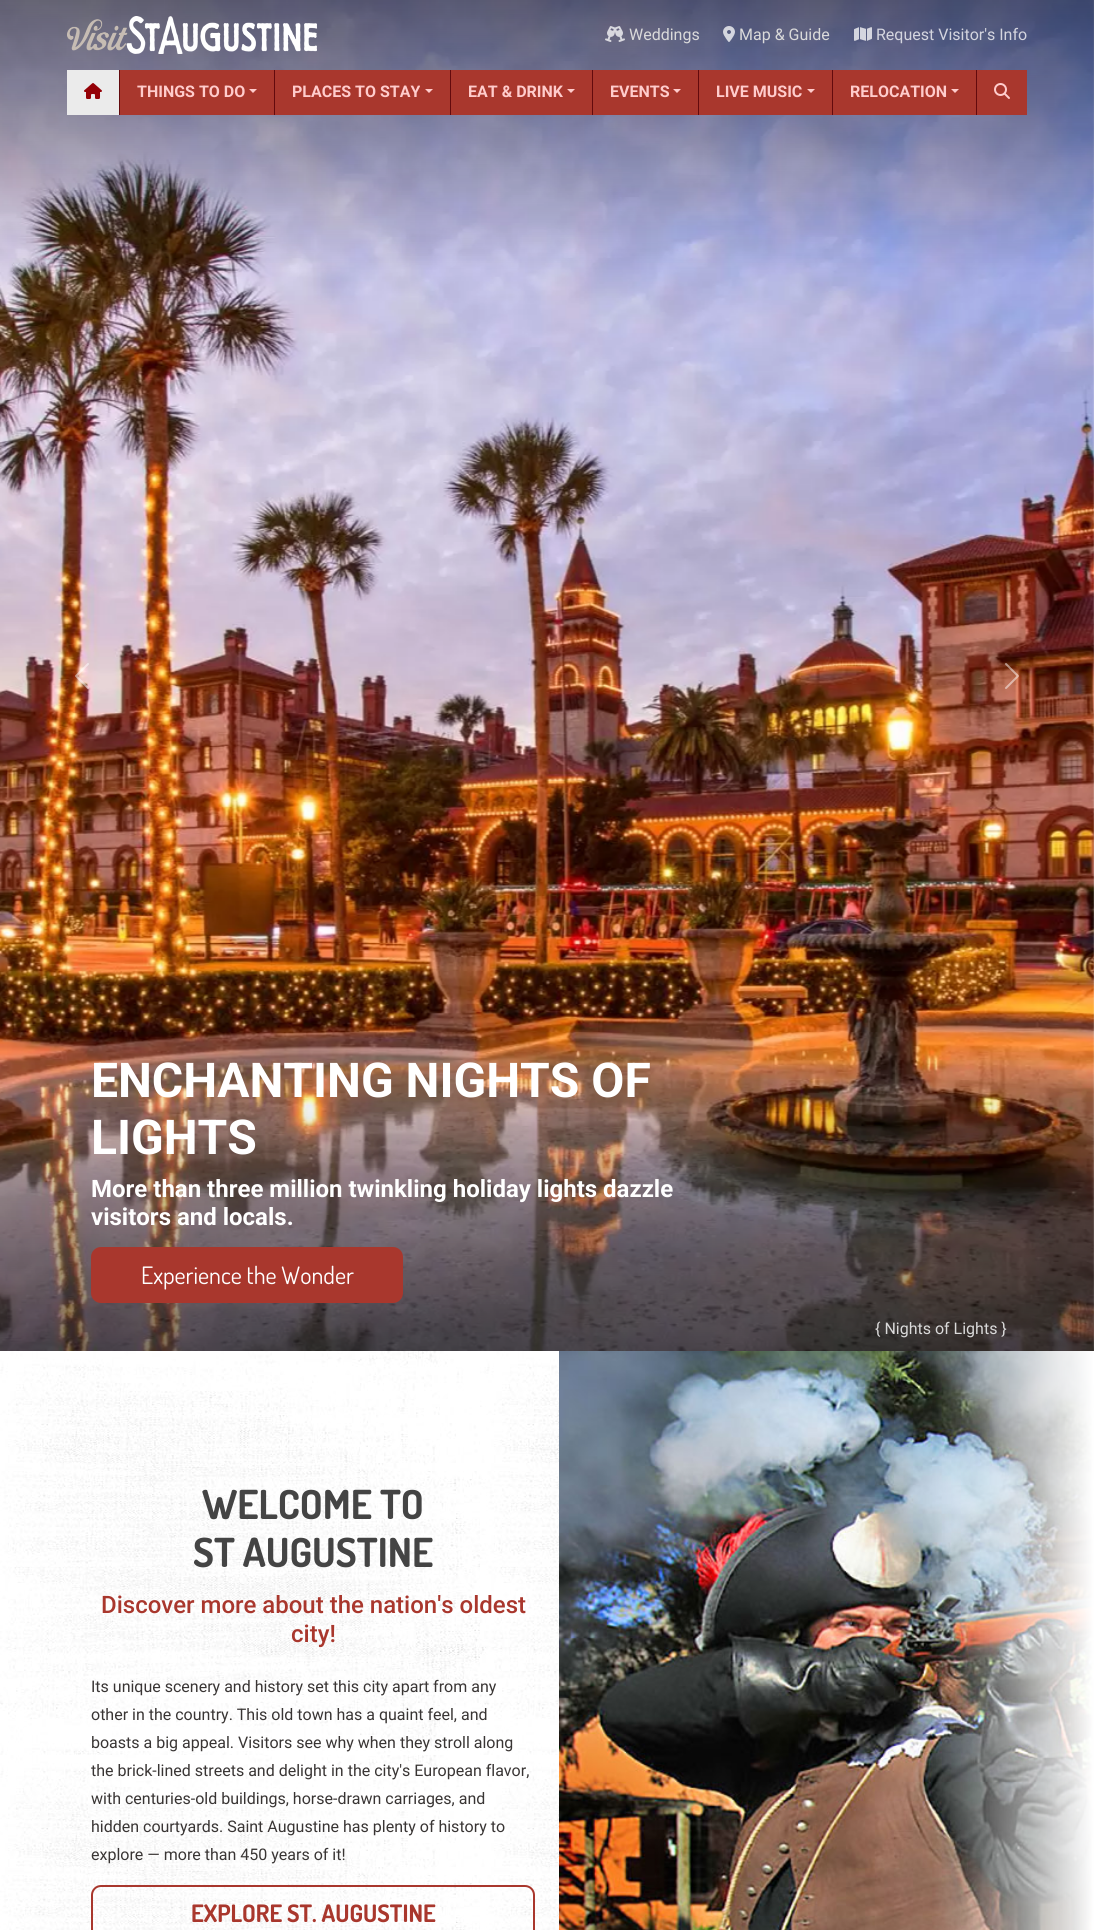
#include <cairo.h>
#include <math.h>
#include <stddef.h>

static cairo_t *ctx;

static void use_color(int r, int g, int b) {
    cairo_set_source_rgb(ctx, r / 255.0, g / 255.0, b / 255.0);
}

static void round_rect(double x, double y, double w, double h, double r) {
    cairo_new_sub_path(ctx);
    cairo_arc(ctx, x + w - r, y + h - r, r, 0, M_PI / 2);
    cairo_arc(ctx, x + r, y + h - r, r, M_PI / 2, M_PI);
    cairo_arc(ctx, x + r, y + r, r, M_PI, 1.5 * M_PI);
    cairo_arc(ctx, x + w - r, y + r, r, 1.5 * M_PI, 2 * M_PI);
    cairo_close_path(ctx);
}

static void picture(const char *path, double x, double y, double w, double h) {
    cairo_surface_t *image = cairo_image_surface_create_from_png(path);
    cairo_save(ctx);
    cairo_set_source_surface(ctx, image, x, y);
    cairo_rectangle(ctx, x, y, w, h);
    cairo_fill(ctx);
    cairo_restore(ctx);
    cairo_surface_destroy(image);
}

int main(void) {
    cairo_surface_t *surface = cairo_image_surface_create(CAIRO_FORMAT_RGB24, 1094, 1930);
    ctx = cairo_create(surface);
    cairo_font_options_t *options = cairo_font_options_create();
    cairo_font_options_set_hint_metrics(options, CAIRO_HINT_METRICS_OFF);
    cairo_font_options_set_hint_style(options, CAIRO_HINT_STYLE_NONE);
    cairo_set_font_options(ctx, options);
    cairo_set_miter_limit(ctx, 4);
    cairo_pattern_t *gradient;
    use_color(255, 255, 255);
    cairo_paint(ctx);
    picture("img1.png", 1092, 0, 2, 1351);
    picture("img10.png", 0, 0, 1094, 1351);
    gradient = cairo_pattern_create_linear(547, 0, 547, 1351);
    cairo_pattern_add_color_stop_rgba(gradient, 0, 0, 0, 0, 0.5);
    cairo_pattern_add_color_stop_rgba(gradient, 0.2, 0, 0, 0, 0);
    cairo_pattern_add_color_stop_rgba(gradient, 0.8, 0, 0, 0, 0);
    cairo_pattern_add_color_stop_rgba(gradient, 1, 0, 0, 0, 0.5);
    cairo_set_source(ctx, gradient);
    cairo_pattern_destroy(gradient);
    cairo_rectangle(ctx, 0, 0, 1094, 1351);
    cairo_fill(ctx);
    picture("img2.png", 67, 16, 250, 38);
    picture("img3.png", 605, 26, 20, 16);
    cairo_select_font_face(ctx, "Roboto", CAIRO_FONT_SLANT_NORMAL, CAIRO_FONT_WEIGHT_NORMAL);
    cairo_set_font_size(ctx, 16);
    use_color(218, 218, 218);
    cairo_move_to(ctx, 629, 40);
    cairo_show_text(ctx, "Weddings");
    picture("img4.png", 723, 26, 12, 16);
    cairo_move_to(ctx, 739, 40);
    cairo_show_text(ctx, "Map & Guide");
    picture("img5.png", 854, 27, 18, 14);
    use_color(212, 213, 223);
    cairo_move_to(ctx, 876, 40);
    cairo_show_text(ctx, "Request Visitor's Info");
    use_color(169, 55, 45);
    cairo_rectangle(ctx, 120, 70, 907, 45);
    cairo_fill(ctx);
    use_color(99, 10, 13);
    cairo_rectangle(ctx, 119, 70, 1, 45);
    cairo_fill(ctx);
    use_color(235, 235, 235);
    cairo_rectangle(ctx, 67, 70, 52, 45);
    cairo_fill(ctx);
    picture("img6.png", 84, 83, 18, 16);
    use_color(99, 10, 13);
    cairo_rectangle(ctx, 274, 70, 1, 45);
    cairo_fill(ctx);
    cairo_select_font_face(ctx, "Roboto", CAIRO_FONT_SLANT_NORMAL, CAIRO_FONT_WEIGHT_BOLD);
    use_color(255, 204, 204);
    cairo_move_to(ctx, 137, 97);
    cairo_show_text(ctx, "THINGS TO DO");
    cairo_new_path(ctx);
    cairo_move_to(ctx, 249, 89);
    cairo_line_to(ctx, 257, 89);
    cairo_line_to(ctx, 253, 93);
    cairo_close_path(ctx);
    cairo_fill(ctx);
    use_color(99, 10, 13);
    cairo_rectangle(ctx, 450, 70, 1, 45);
    cairo_fill(ctx);
    use_color(255, 204, 204);
    cairo_move_to(ctx, 292, 97);
    cairo_show_text(ctx, "PLACES TO STAY");
    cairo_new_path(ctx);
    cairo_move_to(ctx, 425, 89);
    cairo_line_to(ctx, 433, 89);
    cairo_line_to(ctx, 429, 93);
    cairo_close_path(ctx);
    cairo_fill(ctx);
    use_color(99, 10, 13);
    cairo_rectangle(ctx, 592, 70, 1, 45);
    cairo_fill(ctx);
    use_color(255, 204, 204);
    cairo_move_to(ctx, 468, 97);
    cairo_show_text(ctx, "EAT & DRINK");
    cairo_new_path(ctx);
    cairo_move_to(ctx, 567, 89);
    cairo_line_to(ctx, 575, 89);
    cairo_line_to(ctx, 571, 93);
    cairo_close_path(ctx);
    cairo_fill(ctx);
    use_color(99, 10, 13);
    cairo_rectangle(ctx, 698, 70, 1, 45);
    cairo_fill(ctx);
    use_color(255, 204, 204);
    cairo_move_to(ctx, 610, 97);
    cairo_show_text(ctx, "EVENTS");
    cairo_new_path(ctx);
    cairo_move_to(ctx, 673, 89);
    cairo_line_to(ctx, 681, 89);
    cairo_line_to(ctx, 677, 93);
    cairo_close_path(ctx);
    cairo_fill(ctx);
    use_color(99, 10, 13);
    cairo_rectangle(ctx, 832, 70, 1, 45);
    cairo_fill(ctx);
    use_color(255, 204, 204);
    cairo_move_to(ctx, 716, 97);
    cairo_show_text(ctx, "LIVE MUSIC");
    cairo_new_path(ctx);
    cairo_move_to(ctx, 807, 89);
    cairo_line_to(ctx, 815, 89);
    cairo_line_to(ctx, 811, 93);
    cairo_close_path(ctx);
    cairo_fill(ctx);
    use_color(99, 10, 13);
    cairo_rectangle(ctx, 976, 70, 1, 45);
    cairo_fill(ctx);
    use_color(255, 204, 204);
    cairo_move_to(ctx, 850, 97);
    cairo_show_text(ctx, "RELOCATION");
    cairo_new_path(ctx);
    cairo_move_to(ctx, 951, 89);
    cairo_line_to(ctx, 959, 89);
    cairo_line_to(ctx, 955, 93);
    cairo_close_path(ctx);
    cairo_fill(ctx);
    picture("img7.png", 994, 83, 16, 16);
    picture("img8.png", 75, 663, 14, 26);
    picture("img9.png", 1005, 663, 14, 26);
    cairo_set_font_size(ctx, 48);
    use_color(255, 255, 255);
    cairo_move_to(ctx, 91, 1097);
    cairo_show_text(ctx, "ENCHANTING NIGHTS OF");
    cairo_move_to(ctx, 91, 1154);
    cairo_show_text(ctx, "LIGHTS");
    cairo_set_font_size(ctx, 24);
    cairo_move_to(ctx, 91, 1197);
    cairo_show_text(ctx, "More than three million twinkling holiday lights dazzle");
    cairo_move_to(ctx, 91, 1225);
    cairo_show_text(ctx, "visitors and locals.");
    use_color(169, 55, 45);
    round_rect(91, 1247, 312, 56, 10);
    cairo_fill(ctx);
    cairo_select_font_face(ctx, "Dosis", CAIRO_FONT_SLANT_NORMAL, CAIRO_FONT_WEIGHT_NORMAL);
    use_color(255, 255, 255);
    cairo_move_to(ctx, 141, 1284);
    cairo_show_text(ctx, "Experience the Wonder");
    cairo_select_font_face(ctx, "Roboto", CAIRO_FONT_SLANT_NORMAL, CAIRO_FONT_WEIGHT_NORMAL);
    cairo_set_font_size(ctx, 16);
    use_color(218, 218, 218);
    cairo_move_to(ctx, 875, 1334);
    cairo_show_text(ctx, "{ Nights of Lights }");
    picture("img11.png", 0, 1351, 559, 579);
    cairo_select_font_face(ctx, "Dosis", CAIRO_FONT_SLANT_NORMAL, CAIRO_FONT_WEIGHT_BOLD);
    cairo_set_font_size(ctx, 40);
    use_color(68, 68, 68);
    cairo_move_to(ctx, 202, 1519);
    cairo_show_text(ctx, "WELCOME TO");
    cairo_move_to(ctx, 193, 1567);
    cairo_show_text(ctx, "ST AUGUSTINE");
    cairo_select_font_face(ctx, "Roboto Medium", CAIRO_FONT_SLANT_NORMAL, CAIRO_FONT_WEIGHT_NORMAL);
    cairo_set_font_size(ctx, 24);
    use_color(169, 55, 45);
    cairo_move_to(ctx, 101, 1613);
    cairo_show_text(ctx, "Discover more about the nation's oldest");
    cairo_move_to(ctx, 291, 1642);
    cairo_show_text(ctx, "city!");
    cairo_select_font_face(ctx, "Roboto", CAIRO_FONT_SLANT_NORMAL, CAIRO_FONT_WEIGHT_NORMAL);
    cairo_set_font_size(ctx, 16);
    use_color(57, 53, 52);
    cairo_move_to(ctx, 91, 1692);
    cairo_show_text(ctx, "Its unique scenery and history set this city apart from any");
    cairo_move_to(ctx, 91, 1720);
    cairo_show_text(ctx, "other in the country. This old town has a quaint feel, and");
    cairo_move_to(ctx, 91, 1748);
    cairo_show_text(ctx, "boasts a big appeal. Visitors see why when they stroll along");
    cairo_move_to(ctx, 91, 1776);
    cairo_show_text(ctx, "the brick-lined streets and delight in the city's European flavor,");
    cairo_move_to(ctx, 91, 1804);
    cairo_show_text(ctx, "with centuries-old buildings, horse-drawn carriages, and");
    cairo_move_to(ctx, 91, 1832);
    cairo_show_text(ctx, "hidden courtyards. Saint Augustine has plenty of history to");
    cairo_move_to(ctx, 91, 1860);
    cairo_show_text(ctx, "explore — more than 450 years of it!");
    round_rect(92, 1886, 442, 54, 9);
    use_color(169, 55, 45);
    cairo_stroke(ctx);
    cairo_select_font_face(ctx, "Dosis", CAIRO_FONT_SLANT_NORMAL, CAIRO_FONT_WEIGHT_BOLD);
    cairo_set_font_size(ctx, 24);
    cairo_move_to(ctx, 191, 1922);
    cairo_show_text(ctx, "EXPLORE ST. AUGUSTINE");
    picture("img12.png", 559, 1351, 535, 579);
    cairo_surface_write_to_png(surface, "result.png");
    cairo_font_options_destroy(options);
    cairo_destroy(ctx);
    cairo_surface_destroy(surface);
    return 0;
}
